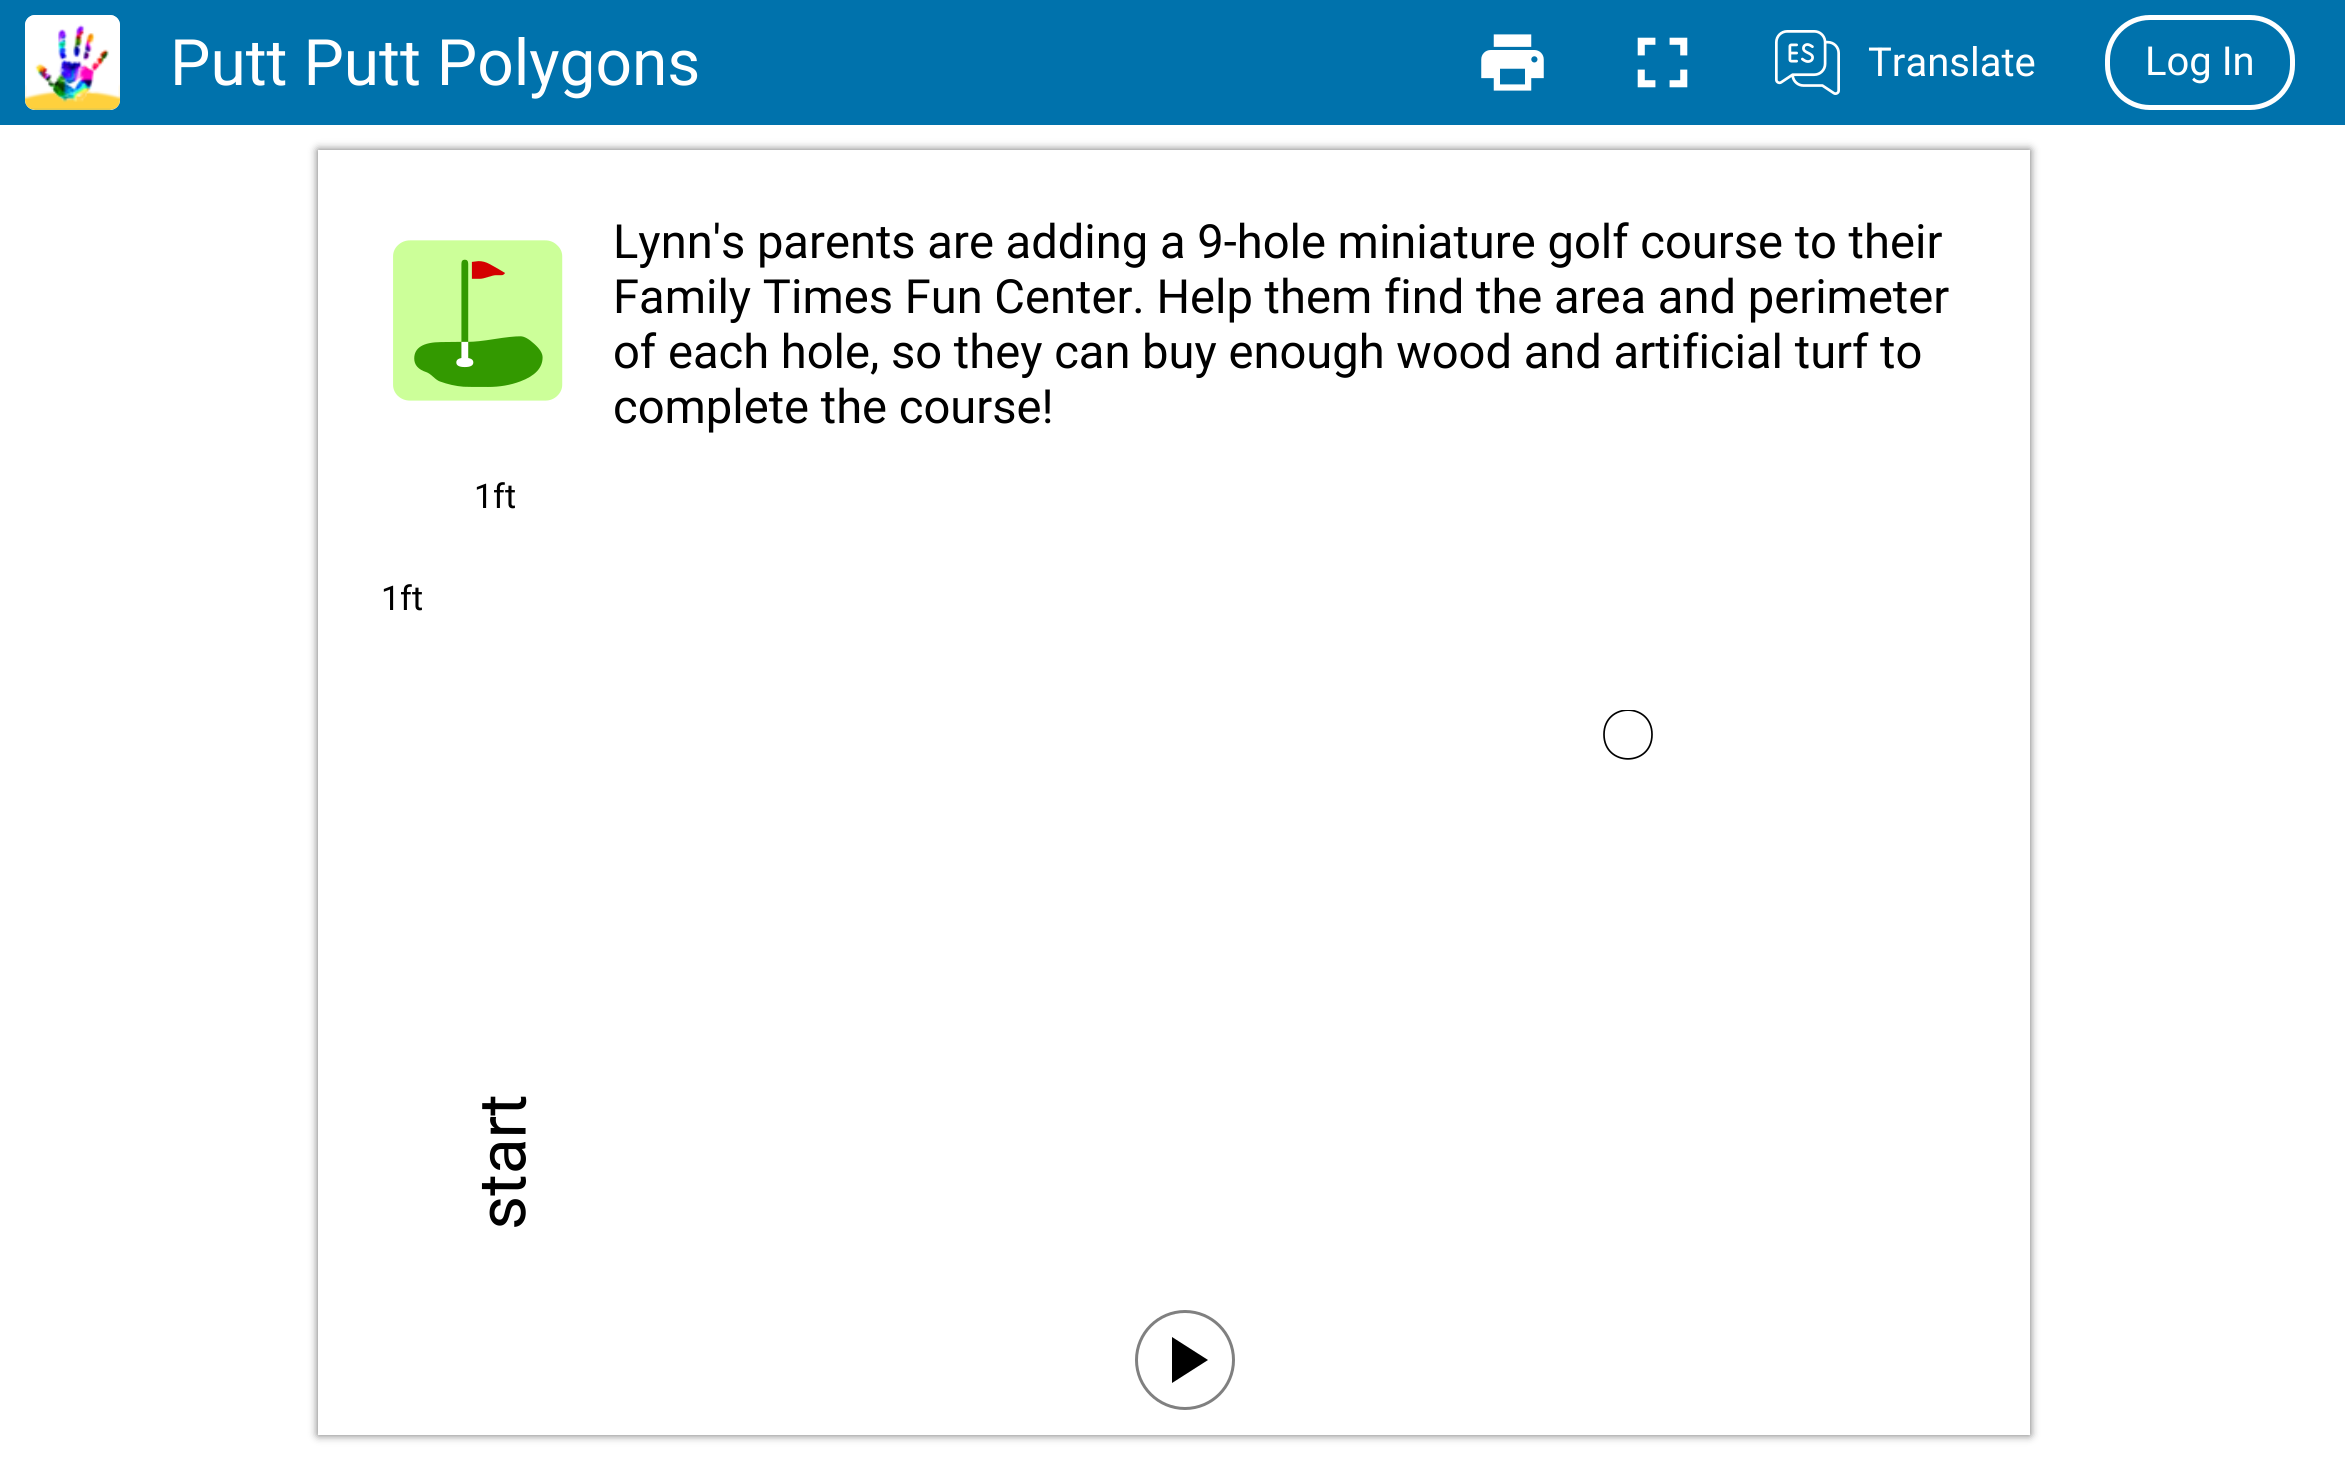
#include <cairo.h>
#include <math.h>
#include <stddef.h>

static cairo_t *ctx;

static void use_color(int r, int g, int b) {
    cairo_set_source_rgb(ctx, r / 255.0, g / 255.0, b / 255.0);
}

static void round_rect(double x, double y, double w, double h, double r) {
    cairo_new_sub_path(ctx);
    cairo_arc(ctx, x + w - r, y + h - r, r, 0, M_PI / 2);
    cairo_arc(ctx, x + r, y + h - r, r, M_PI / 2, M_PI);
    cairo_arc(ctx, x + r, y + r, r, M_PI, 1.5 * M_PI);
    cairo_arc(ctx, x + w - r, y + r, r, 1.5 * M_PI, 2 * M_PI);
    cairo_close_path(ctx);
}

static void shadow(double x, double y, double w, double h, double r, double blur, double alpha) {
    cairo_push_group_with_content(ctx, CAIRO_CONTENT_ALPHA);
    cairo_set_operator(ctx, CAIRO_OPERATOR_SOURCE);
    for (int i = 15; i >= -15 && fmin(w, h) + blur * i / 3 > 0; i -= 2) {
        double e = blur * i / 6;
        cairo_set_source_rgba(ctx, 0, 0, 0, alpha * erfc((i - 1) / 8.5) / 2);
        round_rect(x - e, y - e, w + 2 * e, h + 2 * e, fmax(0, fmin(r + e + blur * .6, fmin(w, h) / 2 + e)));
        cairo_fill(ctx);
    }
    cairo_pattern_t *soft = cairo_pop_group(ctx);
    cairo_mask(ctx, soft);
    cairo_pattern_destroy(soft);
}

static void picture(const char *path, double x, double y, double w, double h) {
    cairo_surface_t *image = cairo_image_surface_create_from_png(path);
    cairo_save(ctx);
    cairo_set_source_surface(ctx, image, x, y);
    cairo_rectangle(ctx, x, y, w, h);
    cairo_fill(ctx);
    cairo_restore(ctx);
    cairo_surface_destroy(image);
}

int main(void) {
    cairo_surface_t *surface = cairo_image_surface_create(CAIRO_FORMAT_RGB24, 2345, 1460);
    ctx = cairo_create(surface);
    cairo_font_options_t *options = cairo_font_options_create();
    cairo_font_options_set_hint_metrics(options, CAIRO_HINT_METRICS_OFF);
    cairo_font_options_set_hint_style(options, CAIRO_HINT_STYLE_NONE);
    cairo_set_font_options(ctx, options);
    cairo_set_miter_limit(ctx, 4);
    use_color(255, 255, 255);
    cairo_paint(ctx);
    use_color(0, 114, 172);
    cairo_rectangle(ctx, 0, 0, 2345, 125);
    cairo_fill(ctx);
    use_color(255, 255, 255);
    round_rect(25, 15, 95, 95, 10);
    cairo_fill(ctx);
    picture("img1.png", 25, 15, 95, 95);
    cairo_select_font_face(ctx, "Roboto", CAIRO_FONT_SLANT_NORMAL, CAIRO_FONT_WEIGHT_NORMAL);
    cairo_set_font_size(ctx, 64);
    cairo_move_to(ctx, 170, 85);
    cairo_show_text(ctx, "Putt Putt Polygons");
    picture("img2.png", 1481, 34, 63, 57);
    picture("img3.png", 1637, 37, 51, 51);
    picture("img4.png", 1775, 30, 65, 65);
    cairo_set_font_size(ctx, 40);
    cairo_move_to(ctx, 1868, 76);
    cairo_show_text(ctx, "Translate");
    round_rect(2107.5, 17.5, 185, 90, 42.5);
    cairo_set_line_width(ctx, 5);
    cairo_stroke(ctx);
    cairo_move_to(ctx, 2145, 75);
    cairo_show_text(ctx, "Log In");
    cairo_save(ctx);
    cairo_set_fill_rule(ctx, CAIRO_FILL_RULE_EVEN_ODD);
    cairo_new_path(ctx);
    cairo_move_to(ctx, 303, 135);
    cairo_line_to(ctx, 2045, 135);
    cairo_line_to(ctx, 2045, 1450);
    cairo_line_to(ctx, 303, 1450);
    cairo_close_path(ctx);
    cairo_move_to(ctx, 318, 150);
    cairo_line_to(ctx, 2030, 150);
    cairo_line_to(ctx, 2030, 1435);
    cairo_line_to(ctx, 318, 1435);
    cairo_close_path(ctx);
    cairo_clip(ctx);
    use_color(107, 107, 107);
    shadow(318, 150, 1712, 1285, 0, 4.5, 1);
    cairo_restore(ctx);
    picture("img5.png", 393, 240, 170, 161);
    cairo_set_font_size(ctx, 47.1);
    use_color(0, 0, 0);
    cairo_move_to(ctx, 613, 258);
    cairo_show_text(ctx, "Lynn's parents are adding a 9-hole miniature golf course to their");
    cairo_move_to(ctx, 613, 313);
    cairo_show_text(ctx, "Family Times Fun Center. Help them find the area and perimeter");
    cairo_move_to(ctx, 613, 368);
    cairo_show_text(ctx, "of each hole, so they can buy enough wood and artificial turf to");
    cairo_move_to(ctx, 613, 423);
    cairo_show_text(ctx, "complete the course!");
    cairo_set_font_size(ctx, 34);
    cairo_move_to(ctx, 474, 508);
    cairo_show_text(ctx, "1ft");
    cairo_move_to(ctx, 381, 610);
    cairo_show_text(ctx, "1ft");
    cairo_save(ctx);
    cairo_rectangle(ctx, 1603, 710, 50, 50);
    cairo_clip(ctx);
    cairo_new_path(ctx);
    cairo_move_to(ctx, 1652, 734.5);
    cairo_curve_to(ctx, 1652, 767, 1604, 767, 1604, 734.5);
    cairo_curve_to(ctx, 1604, 702, 1652, 702, 1652, 734.5);
    cairo_close_path(ctx);
    cairo_set_line_width(ctx, 1.7);
    cairo_stroke(ctx);
    cairo_restore(ctx);
    cairo_set_font_size(ctx, 66);
    cairo_save(ctx);
    cairo_translate(ctx, 525, 1230);
    cairo_rotate(ctx, -89.7 * M_PI / 180);
    cairo_move_to(ctx, 0, 0);
    cairo_show_text(ctx, "start");
    cairo_restore(ctx);
    cairo_new_path(ctx);
    cairo_move_to(ctx, 1172, 1337);
    cairo_line_to(ctx, 1172, 1383);
    cairo_line_to(ctx, 1208, 1360);
    cairo_close_path(ctx);
    cairo_fill(ctx);
    cairo_arc(ctx, 1185, 1360, 48.5, 0, 2 * M_PI);
    use_color(128, 128, 128);
    cairo_set_line_width(ctx, 3);
    cairo_stroke(ctx);
    cairo_surface_write_to_png(surface, "result.png");
    cairo_font_options_destroy(options);
    cairo_destroy(ctx);
    cairo_surface_destroy(surface);
    return 0;
}
